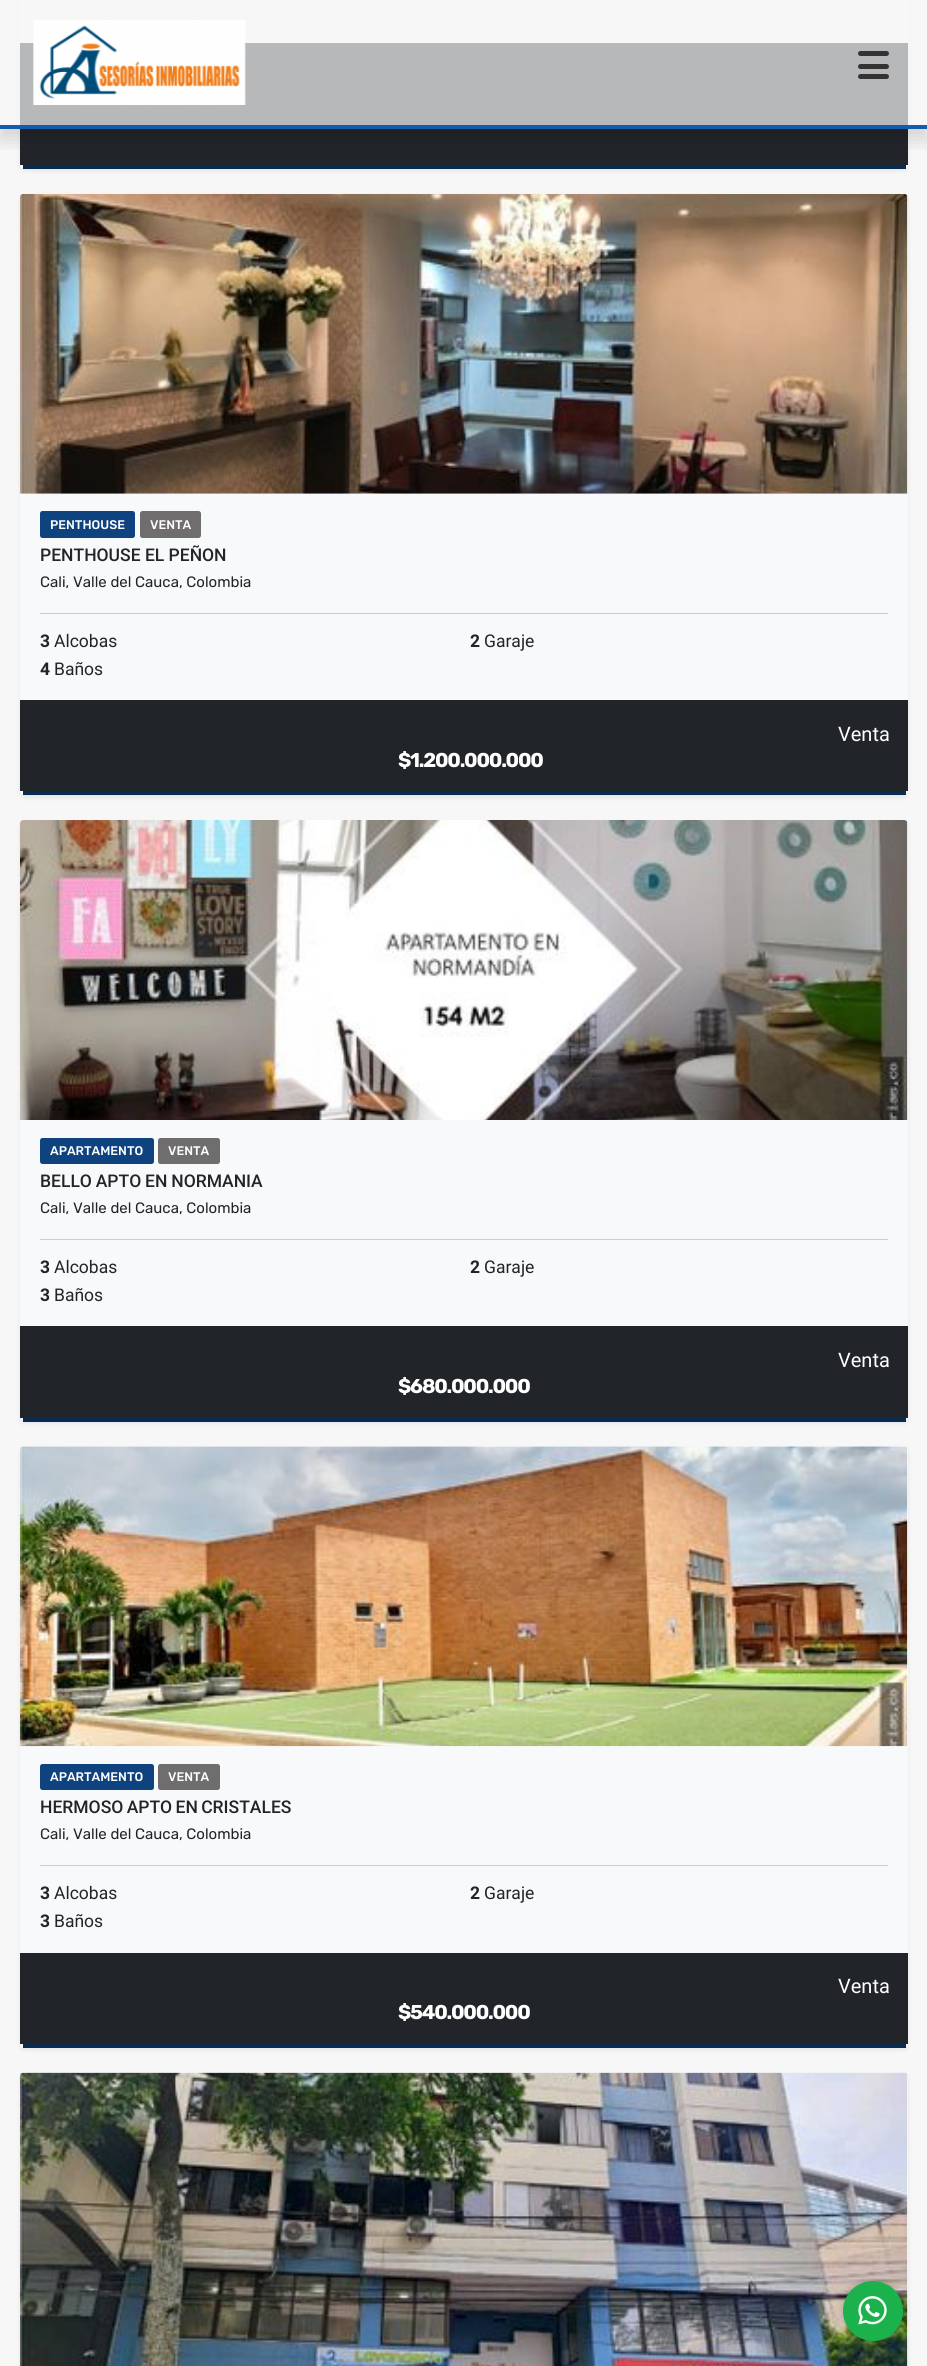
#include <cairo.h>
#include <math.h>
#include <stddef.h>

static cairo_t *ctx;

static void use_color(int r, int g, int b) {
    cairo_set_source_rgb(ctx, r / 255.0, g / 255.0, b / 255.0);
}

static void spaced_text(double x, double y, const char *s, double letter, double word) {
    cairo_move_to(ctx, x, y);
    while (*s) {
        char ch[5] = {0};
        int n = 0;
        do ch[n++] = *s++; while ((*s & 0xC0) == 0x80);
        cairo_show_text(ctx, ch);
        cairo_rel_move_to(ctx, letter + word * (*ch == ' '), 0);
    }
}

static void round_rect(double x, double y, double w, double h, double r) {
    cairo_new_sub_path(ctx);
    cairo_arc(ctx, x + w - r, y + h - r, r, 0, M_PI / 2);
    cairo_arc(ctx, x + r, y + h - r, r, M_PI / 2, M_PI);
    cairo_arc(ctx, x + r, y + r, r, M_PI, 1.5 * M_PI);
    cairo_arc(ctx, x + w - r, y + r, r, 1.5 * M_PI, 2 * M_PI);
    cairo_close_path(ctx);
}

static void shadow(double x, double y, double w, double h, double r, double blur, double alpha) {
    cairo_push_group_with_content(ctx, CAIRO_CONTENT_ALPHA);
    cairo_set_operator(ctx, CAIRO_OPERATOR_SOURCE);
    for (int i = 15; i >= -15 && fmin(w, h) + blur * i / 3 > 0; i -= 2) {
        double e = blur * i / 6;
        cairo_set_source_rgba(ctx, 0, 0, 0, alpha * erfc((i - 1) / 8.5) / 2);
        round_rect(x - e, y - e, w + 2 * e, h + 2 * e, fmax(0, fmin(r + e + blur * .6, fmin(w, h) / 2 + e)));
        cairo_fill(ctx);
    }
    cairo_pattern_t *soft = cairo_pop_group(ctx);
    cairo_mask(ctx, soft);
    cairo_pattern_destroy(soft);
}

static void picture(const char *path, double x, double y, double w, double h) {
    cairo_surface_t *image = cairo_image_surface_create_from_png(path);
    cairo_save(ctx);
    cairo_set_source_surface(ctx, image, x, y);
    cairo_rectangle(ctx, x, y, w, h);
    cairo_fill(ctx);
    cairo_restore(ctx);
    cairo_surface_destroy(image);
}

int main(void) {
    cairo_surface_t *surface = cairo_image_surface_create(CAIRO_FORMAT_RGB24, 927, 2366);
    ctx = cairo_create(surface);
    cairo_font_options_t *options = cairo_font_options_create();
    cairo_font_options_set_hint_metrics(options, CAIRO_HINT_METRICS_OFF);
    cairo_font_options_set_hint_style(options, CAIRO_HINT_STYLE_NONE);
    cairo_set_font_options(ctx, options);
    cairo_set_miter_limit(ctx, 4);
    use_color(247, 247, 247);
    cairo_paint(ctx);
    use_color(0, 0, 0);
    shadow(20, -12, 888, 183, 4, 2.5, 0.07);
    use_color(248, 249, 250);
    round_rect(20, -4, 888, 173, 4);
    cairo_fill(ctx);
    use_color(9, 43, 82);
    cairo_rectangle(ctx, 23, 165, 883, 4);
    cairo_fill(ctx);
    use_color(33, 37, 41);
    cairo_rectangle(ctx, 20, 43, 888, 122);
    cairo_fill(ctx);
    cairo_save(ctx);
    cairo_rectangle(ctx, 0, 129, 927, 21);
    cairo_clip(ctx);
    use_color(0, 0, 0);
    shadow(0, 10, 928, 129, 0, 10, 0.15);
    cairo_restore(ctx);
    cairo_set_source_rgba(ctx, 0.969, 0.969, 0.969, 0.7);
    cairo_rectangle(ctx, 18, 0, 892, 125);
    cairo_fill(ctx);
    use_color(20, 91, 173);
    cairo_rectangle(ctx, 0, 125, 927, 4);
    cairo_fill(ctx);
    picture("img1.png", 33, 20, 213, 85);
    use_color(51, 51, 51);
    round_rect(858, 51, 31, 5, 2.5);
    cairo_fill(ctx);
    round_rect(858, 64, 31, 5, 2.5);
    cairo_fill(ctx);
    round_rect(858, 74, 31, 5, 2.5);
    cairo_fill(ctx);
    use_color(0, 0, 0);
    shadow(20, 196, 888, 602, 4, 2.5, 0.07);
    use_color(248, 249, 250);
    round_rect(20, 194, 888, 601, 4);
    cairo_fill(ctx);
    use_color(9, 43, 82);
    cairo_rectangle(ctx, 23, 791, 883, 4);
    cairo_fill(ctx);
    picture("img2.png", 20, 194, 888, 300);
    use_color(15, 67, 127);
    round_rect(40, 511, 95, 27, 2.5);
    cairo_fill(ctx);
    cairo_select_font_face(ctx, "Rubik Medium", CAIRO_FONT_SLANT_NORMAL, CAIRO_FONT_WEIGHT_NORMAL);
    cairo_set_font_size(ctx, 12.5);
    use_color(255, 255, 255);
    cairo_move_to(ctx, 50, 529);
    cairo_show_text(ctx, "PENTHOUSE");
    use_color(111, 109, 109);
    round_rect(140, 511, 61, 27, 2.5);
    cairo_fill(ctx);
    use_color(255, 255, 255);
    cairo_move_to(ctx, 150, 529);
    cairo_show_text(ctx, "VENTA");
    cairo_select_font_face(ctx, "Roboto Medium", CAIRO_FONT_SLANT_NORMAL, CAIRO_FONT_WEIGHT_NORMAL);
    cairo_set_font_size(ctx, 17.5);
    use_color(33, 37, 41);
    cairo_move_to(ctx, 40, 561);
    cairo_show_text(ctx, "PENTHOUSE EL PEÑON");
    cairo_select_font_face(ctx, "Rubik", CAIRO_FONT_SLANT_NORMAL, CAIRO_FONT_WEIGHT_NORMAL);
    cairo_set_font_size(ctx, 15);
    cairo_move_to(ctx, 40, 587);
    cairo_show_text(ctx, "Cali, Valle del Cauca, Colombia");
    use_color(205, 205, 205);
    cairo_rectangle(ctx, 40, 613, 848, 1);
    cairo_fill(ctx);
    cairo_select_font_face(ctx, "Roboto", CAIRO_FONT_SLANT_NORMAL, CAIRO_FONT_WEIGHT_BOLD);
    cairo_set_font_size(ctx, 17.5);
    use_color(33, 37, 41);
    cairo_move_to(ctx, 40, 647);
    cairo_show_text(ctx, "3");
    cairo_select_font_face(ctx, "Roboto", CAIRO_FONT_SLANT_NORMAL, CAIRO_FONT_WEIGHT_NORMAL);
    cairo_move_to(ctx, 54, 647);
    cairo_show_text(ctx, "Alcobas");
    cairo_select_font_face(ctx, "Roboto", CAIRO_FONT_SLANT_NORMAL, CAIRO_FONT_WEIGHT_BOLD);
    cairo_move_to(ctx, 470, 647);
    cairo_show_text(ctx, "2");
    cairo_select_font_face(ctx, "Roboto", CAIRO_FONT_SLANT_NORMAL, CAIRO_FONT_WEIGHT_NORMAL);
    cairo_move_to(ctx, 484, 647);
    cairo_show_text(ctx, "Garaje");
    cairo_select_font_face(ctx, "Roboto", CAIRO_FONT_SLANT_NORMAL, CAIRO_FONT_WEIGHT_BOLD);
    cairo_move_to(ctx, 40, 675);
    cairo_show_text(ctx, "4");
    cairo_select_font_face(ctx, "Roboto", CAIRO_FONT_SLANT_NORMAL, CAIRO_FONT_WEIGHT_NORMAL);
    cairo_move_to(ctx, 54, 675);
    cairo_show_text(ctx, "Baños");
    cairo_rectangle(ctx, 20, 700, 888, 91);
    cairo_fill(ctx);
    cairo_set_font_size(ctx, 20);
    use_color(255, 255, 255);
    cairo_move_to(ctx, 838, 741);
    cairo_show_text(ctx, "Venta");
    cairo_select_font_face(ctx, "Rubik", CAIRO_FONT_SLANT_NORMAL, CAIRO_FONT_WEIGHT_BOLD);
    spaced_text(398, 767, "$1.200.000.000", -1.25, 0);
    use_color(0, 0, 0);
    shadow(20, 823, 888, 601, 4, 2.5, 0.07);
    use_color(248, 249, 250);
    round_rect(20, 820, 888, 601, 4);
    cairo_fill(ctx);
    use_color(9, 43, 82);
    cairo_rectangle(ctx, 23, 1418, 883, 4);
    cairo_fill(ctx);
    picture("img3.png", 20, 820, 888, 300);
    use_color(15, 67, 127);
    round_rect(40, 1138, 114, 26, 2.5);
    cairo_fill(ctx);
    cairo_select_font_face(ctx, "Rubik Medium", CAIRO_FONT_SLANT_NORMAL, CAIRO_FONT_WEIGHT_NORMAL);
    cairo_set_font_size(ctx, 12.5);
    use_color(255, 255, 255);
    cairo_move_to(ctx, 50, 1155);
    cairo_show_text(ctx, "APARTAMENTO");
    use_color(111, 109, 109);
    round_rect(158, 1138, 62, 26, 2.5);
    cairo_fill(ctx);
    use_color(255, 255, 255);
    cairo_move_to(ctx, 168, 1155);
    cairo_show_text(ctx, "VENTA");
    cairo_select_font_face(ctx, "Roboto Medium", CAIRO_FONT_SLANT_NORMAL, CAIRO_FONT_WEIGHT_NORMAL);
    cairo_set_font_size(ctx, 17.5);
    use_color(33, 37, 41);
    spaced_text(40, 1187, "BELLO APTO EN NORMANIA", 0, -0.5);
    cairo_select_font_face(ctx, "Rubik", CAIRO_FONT_SLANT_NORMAL, CAIRO_FONT_WEIGHT_NORMAL);
    cairo_set_font_size(ctx, 15);
    cairo_move_to(ctx, 40, 1213);
    cairo_show_text(ctx, "Cali, Valle del Cauca, Colombia");
    use_color(205, 205, 205);
    cairo_rectangle(ctx, 40, 1239, 848, 1);
    cairo_fill(ctx);
    cairo_select_font_face(ctx, "Roboto", CAIRO_FONT_SLANT_NORMAL, CAIRO_FONT_WEIGHT_BOLD);
    cairo_set_font_size(ctx, 17.5);
    use_color(33, 37, 41);
    cairo_move_to(ctx, 40, 1273);
    cairo_show_text(ctx, "3");
    cairo_select_font_face(ctx, "Roboto", CAIRO_FONT_SLANT_NORMAL, CAIRO_FONT_WEIGHT_NORMAL);
    cairo_move_to(ctx, 54, 1273);
    cairo_show_text(ctx, "Alcobas");
    cairo_select_font_face(ctx, "Roboto", CAIRO_FONT_SLANT_NORMAL, CAIRO_FONT_WEIGHT_BOLD);
    cairo_move_to(ctx, 470, 1273);
    cairo_show_text(ctx, "2");
    cairo_select_font_face(ctx, "Roboto", CAIRO_FONT_SLANT_NORMAL, CAIRO_FONT_WEIGHT_NORMAL);
    cairo_move_to(ctx, 484, 1273);
    cairo_show_text(ctx, "Garaje");
    cairo_select_font_face(ctx, "Roboto", CAIRO_FONT_SLANT_NORMAL, CAIRO_FONT_WEIGHT_BOLD);
    cairo_move_to(ctx, 40, 1301);
    cairo_show_text(ctx, "3");
    cairo_select_font_face(ctx, "Roboto", CAIRO_FONT_SLANT_NORMAL, CAIRO_FONT_WEIGHT_NORMAL);
    cairo_move_to(ctx, 54, 1301);
    cairo_show_text(ctx, "Baños");
    cairo_rectangle(ctx, 20, 1326, 888, 92);
    cairo_fill(ctx);
    cairo_set_font_size(ctx, 20);
    use_color(255, 255, 255);
    cairo_move_to(ctx, 838, 1367);
    cairo_show_text(ctx, "Venta");
    cairo_select_font_face(ctx, "Rubik", CAIRO_FONT_SLANT_NORMAL, CAIRO_FONT_WEIGHT_BOLD);
    spaced_text(398, 1393, "$680.000.000", -1.25, 0);
    use_color(0, 0, 0);
    shadow(20, 1449, 888, 601, 4, 2.5, 0.07);
    use_color(248, 249, 250);
    round_rect(20, 1446, 888, 602, 4);
    cairo_fill(ctx);
    use_color(9, 43, 82);
    cairo_rectangle(ctx, 23, 2044, 883, 4);
    cairo_fill(ctx);
    picture("img4.png", 20, 1446, 888, 301);
    use_color(15, 67, 127);
    round_rect(40, 1764, 114, 26, 2.5);
    cairo_fill(ctx);
    cairo_select_font_face(ctx, "Rubik Medium", CAIRO_FONT_SLANT_NORMAL, CAIRO_FONT_WEIGHT_NORMAL);
    cairo_set_font_size(ctx, 12.5);
    use_color(255, 255, 255);
    cairo_move_to(ctx, 50, 1781);
    cairo_show_text(ctx, "APARTAMENTO");
    use_color(111, 109, 109);
    round_rect(158, 1764, 62, 26, 2.5);
    cairo_fill(ctx);
    use_color(255, 255, 255);
    cairo_move_to(ctx, 168, 1781);
    cairo_show_text(ctx, "VENTA");
    cairo_select_font_face(ctx, "Roboto Medium", CAIRO_FONT_SLANT_NORMAL, CAIRO_FONT_WEIGHT_NORMAL);
    cairo_set_font_size(ctx, 17.5);
    use_color(33, 37, 41);
    spaced_text(40, 1813, "HERMOSO APTO EN CRISTALES", 0, -1);
    cairo_select_font_face(ctx, "Rubik", CAIRO_FONT_SLANT_NORMAL, CAIRO_FONT_WEIGHT_NORMAL);
    cairo_set_font_size(ctx, 15);
    cairo_move_to(ctx, 40, 1839);
    cairo_show_text(ctx, "Cali, Valle del Cauca, Colombia");
    use_color(205, 205, 205);
    cairo_rectangle(ctx, 40, 1865, 848, 1);
    cairo_fill(ctx);
    cairo_select_font_face(ctx, "Roboto", CAIRO_FONT_SLANT_NORMAL, CAIRO_FONT_WEIGHT_BOLD);
    cairo_set_font_size(ctx, 17.5);
    use_color(33, 37, 41);
    cairo_move_to(ctx, 40, 1899);
    cairo_show_text(ctx, "3");
    cairo_select_font_face(ctx, "Roboto", CAIRO_FONT_SLANT_NORMAL, CAIRO_FONT_WEIGHT_NORMAL);
    cairo_move_to(ctx, 54, 1899);
    cairo_show_text(ctx, "Alcobas");
    cairo_select_font_face(ctx, "Roboto", CAIRO_FONT_SLANT_NORMAL, CAIRO_FONT_WEIGHT_BOLD);
    cairo_move_to(ctx, 470, 1899);
    cairo_show_text(ctx, "2");
    cairo_select_font_face(ctx, "Roboto", CAIRO_FONT_SLANT_NORMAL, CAIRO_FONT_WEIGHT_NORMAL);
    cairo_move_to(ctx, 484, 1899);
    cairo_show_text(ctx, "Garaje");
    cairo_select_font_face(ctx, "Roboto", CAIRO_FONT_SLANT_NORMAL, CAIRO_FONT_WEIGHT_BOLD);
    cairo_move_to(ctx, 40, 1927);
    cairo_show_text(ctx, "3");
    cairo_select_font_face(ctx, "Roboto", CAIRO_FONT_SLANT_NORMAL, CAIRO_FONT_WEIGHT_NORMAL);
    cairo_move_to(ctx, 54, 1927);
    cairo_show_text(ctx, "Baños");
    cairo_rectangle(ctx, 20, 1953, 888, 91);
    cairo_fill(ctx);
    cairo_set_font_size(ctx, 20);
    use_color(255, 255, 255);
    cairo_move_to(ctx, 838, 1993);
    cairo_show_text(ctx, "Venta");
    cairo_select_font_face(ctx, "Rubik", CAIRO_FONT_SLANT_NORMAL, CAIRO_FONT_WEIGHT_BOLD);
    spaced_text(398, 2019, "$540.000.000", -1.25, 0);
    use_color(0, 0, 0);
    shadow(20, 2075, 888, 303, 4, 2.5, 0.07);
    use_color(248, 249, 250);
    round_rect(20, 2073, 888, 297, 4);
    cairo_fill(ctx);
    picture("img5.png", 20, 2072, 888, 294);
    use_color(0, 0, 0);
    shadow(843, 2281, 60, 60, 30, 4, 0.2);
    use_color(27, 178, 78);
    cairo_arc(ctx, 873, 2311, 30, 0, 2 * M_PI);
    cairo_fill(ctx);
    picture("img6.png", 858, 2296, 29, 29);
    cairo_surface_write_to_png(surface, "result.png");
    cairo_font_options_destroy(options);
    cairo_destroy(ctx);
    cairo_surface_destroy(surface);
    return 0;
}
